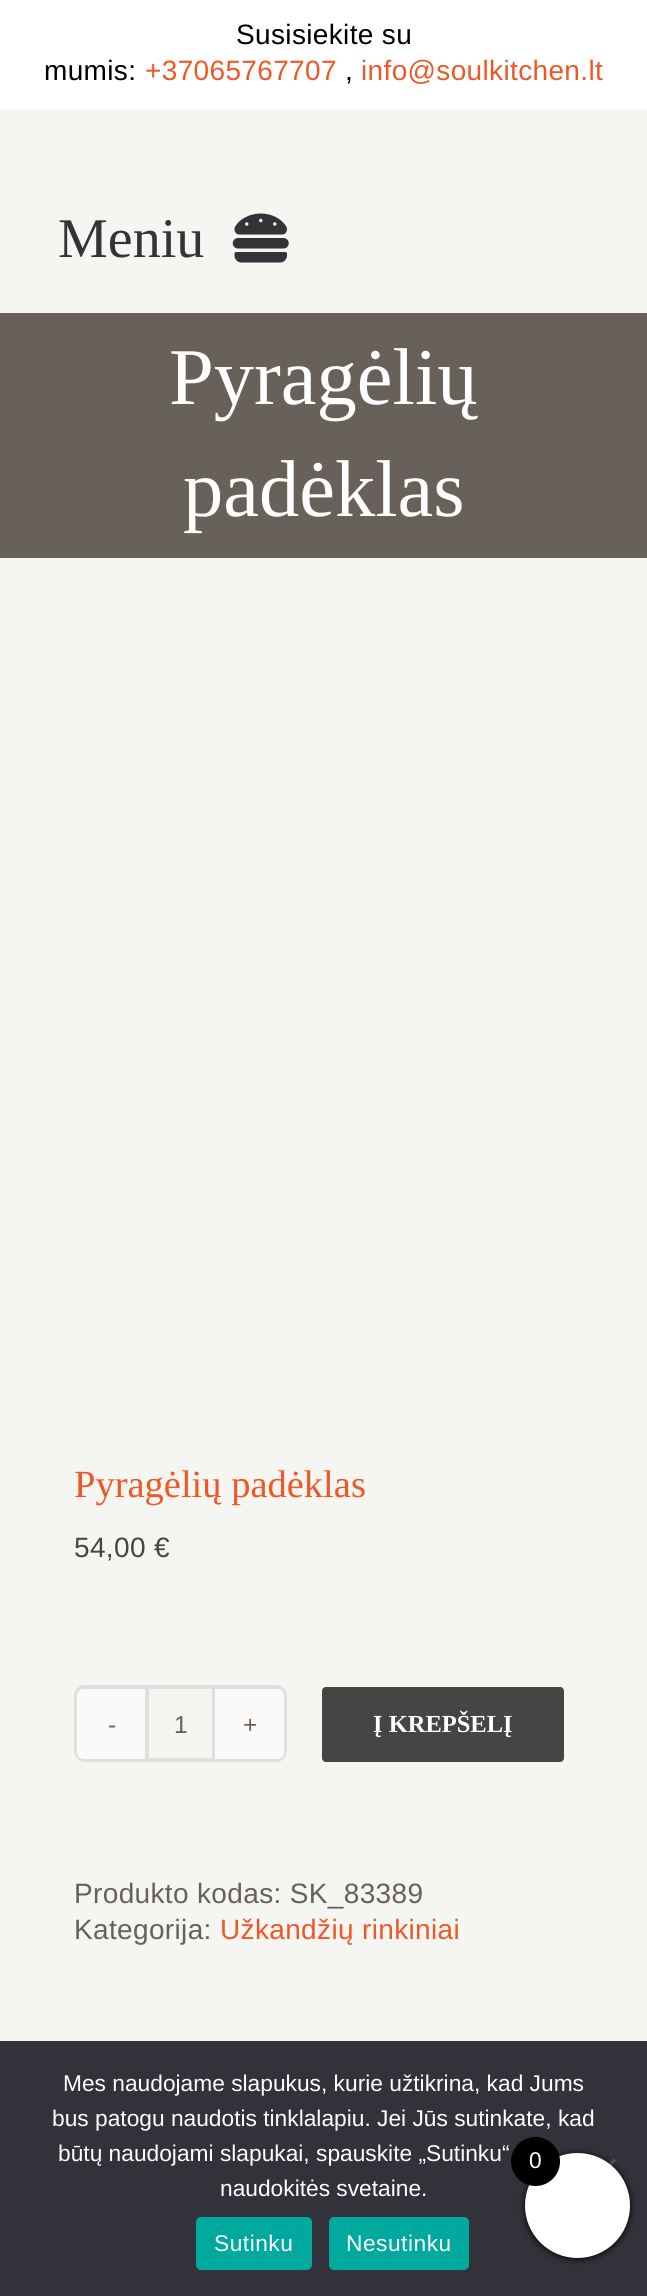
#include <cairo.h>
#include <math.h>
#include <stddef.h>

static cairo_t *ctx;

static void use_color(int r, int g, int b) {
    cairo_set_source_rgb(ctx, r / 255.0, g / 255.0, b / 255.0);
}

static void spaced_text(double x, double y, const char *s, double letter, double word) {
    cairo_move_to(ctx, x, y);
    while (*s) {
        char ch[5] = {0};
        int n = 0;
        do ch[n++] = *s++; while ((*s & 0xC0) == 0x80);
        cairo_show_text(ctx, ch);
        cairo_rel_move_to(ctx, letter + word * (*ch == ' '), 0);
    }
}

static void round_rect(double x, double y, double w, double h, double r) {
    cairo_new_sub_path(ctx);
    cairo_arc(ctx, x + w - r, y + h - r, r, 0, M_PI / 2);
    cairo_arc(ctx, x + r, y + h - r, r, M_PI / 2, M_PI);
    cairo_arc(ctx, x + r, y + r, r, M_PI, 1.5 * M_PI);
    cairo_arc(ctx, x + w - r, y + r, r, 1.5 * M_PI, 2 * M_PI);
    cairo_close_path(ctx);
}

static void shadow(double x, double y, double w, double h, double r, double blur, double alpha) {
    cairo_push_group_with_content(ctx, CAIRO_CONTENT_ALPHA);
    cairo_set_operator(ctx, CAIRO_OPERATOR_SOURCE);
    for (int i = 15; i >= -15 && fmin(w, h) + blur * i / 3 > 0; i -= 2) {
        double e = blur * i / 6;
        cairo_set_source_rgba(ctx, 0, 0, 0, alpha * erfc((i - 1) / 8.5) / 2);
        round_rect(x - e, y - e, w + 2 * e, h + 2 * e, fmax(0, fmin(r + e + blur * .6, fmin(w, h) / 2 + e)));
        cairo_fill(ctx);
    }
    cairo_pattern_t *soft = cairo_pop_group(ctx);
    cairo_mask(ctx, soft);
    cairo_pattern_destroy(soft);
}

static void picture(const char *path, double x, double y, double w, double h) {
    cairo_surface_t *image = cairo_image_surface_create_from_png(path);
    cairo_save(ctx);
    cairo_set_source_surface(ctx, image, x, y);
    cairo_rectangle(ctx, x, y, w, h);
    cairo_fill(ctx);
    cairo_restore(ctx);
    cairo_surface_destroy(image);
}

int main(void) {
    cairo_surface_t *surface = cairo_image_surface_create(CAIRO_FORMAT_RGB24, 647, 2296);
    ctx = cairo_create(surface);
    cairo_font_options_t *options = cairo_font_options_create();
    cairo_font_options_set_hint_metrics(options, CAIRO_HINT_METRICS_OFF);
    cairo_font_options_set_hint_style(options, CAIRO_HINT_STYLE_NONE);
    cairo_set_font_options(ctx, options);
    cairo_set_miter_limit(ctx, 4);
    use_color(245, 245, 241);
    cairo_paint(ctx);
    use_color(255, 255, 255);
    cairo_rectangle(ctx, 0, 0, 647, 109);
    cairo_fill(ctx);
    cairo_select_font_face(ctx, "Liberation Sans", CAIRO_FONT_SLANT_NORMAL, CAIRO_FONT_WEIGHT_NORMAL);
    cairo_set_font_size(ctx, 28);
    use_color(0, 0, 0);
    spaced_text(236, 44, "Susisiekite su", 0.35, 0);
    spaced_text(44, 80, "mumis:", 0.35, 0);
    use_color(238, 88, 39);
    spaced_text(145, 80, "+37065767707", 0.35, 0);
    use_color(0, 0, 0);
    spaced_text(345, 80, ",", 0.35, 0);
    use_color(238, 88, 39);
    spaced_text(361, 80, "info@soulkitchen.lt", 0.35, 0);
    cairo_select_font_face(ctx, "Liberation Serif", CAIRO_FONT_SLANT_NORMAL, CAIRO_FONT_WEIGHT_NORMAL);
    cairo_set_font_size(ctx, 56);
    use_color(51, 51, 56);
    cairo_move_to(ctx, 58, 257);
    cairo_show_text(ctx, "Meniu");
    picture("img1.png", 232, 213, 57, 50);
    use_color(103, 97, 90);
    cairo_rectangle(ctx, 0, 313, 647, 245);
    cairo_fill(ctx);
    cairo_set_font_size(ctx, 80.5);
    use_color(255, 255, 255);
    cairo_move_to(ctx, 169, 404);
    cairo_show_text(ctx, "Pyragėlių");
    cairo_move_to(ctx, 183, 516);
    cairo_show_text(ctx, "padėklas");
    cairo_set_font_size(ctx, 38.5);
    use_color(238, 88, 39);
    cairo_move_to(ctx, 74, 1497);
    cairo_show_text(ctx, "Pyragėlių padėklas");
    cairo_select_font_face(ctx, "Liberation Sans", CAIRO_FONT_SLANT_NORMAL, CAIRO_FONT_WEIGHT_NORMAL);
    cairo_set_font_size(ctx, 28);
    use_color(69, 69, 67);
    spaced_text(74, 1557, "54,00 €", 0.35, 0);
    round_rect(76, 1687, 209, 73, 9);
    use_color(224, 222, 222);
    cairo_set_line_width(ctx, 4);
    cairo_stroke(ctx);
    use_color(251, 250, 249);
    cairo_new_path(ctx);
    cairo_move_to(ctx, 84, 1689);
    cairo_line_to(ctx, 145, 1689);
    cairo_line_to(ctx, 145, 1759);
    cairo_line_to(ctx, 84, 1759);
    cairo_curve_to(ctx, 80, 1759, 77, 1756, 77, 1752);
    cairo_line_to(ctx, 77, 1696);
    cairo_curve_to(ctx, 77, 1692, 80, 1689, 84, 1689);
    cairo_close_path(ctx);
    cairo_fill(ctx);
    cairo_set_font_size(ctx, 24.5);
    use_color(103, 97, 90);
    cairo_move_to(ctx, 108, 1733);
    cairo_show_text(ctx, "-");
    use_color(224, 222, 222);
    cairo_rectangle(ctx, 212, 1689, 3, 70);
    cairo_fill(ctx);
    cairo_rectangle(ctx, 145, 1689, 4, 70);
    cairo_fill(ctx);
    use_color(103, 97, 90);
    cairo_move_to(ctx, 174, 1733);
    cairo_show_text(ctx, "1");
    use_color(251, 250, 249);
    cairo_new_path(ctx);
    cairo_move_to(ctx, 215, 1689);
    cairo_line_to(ctx, 277, 1689);
    cairo_curve_to(ctx, 281, 1689, 284, 1692, 284, 1696);
    cairo_line_to(ctx, 284, 1752);
    cairo_curve_to(ctx, 284, 1756, 281, 1759, 277, 1759);
    cairo_line_to(ctx, 215, 1759);
    cairo_close_path(ctx);
    cairo_fill(ctx);
    use_color(103, 97, 90);
    cairo_move_to(ctx, 243, 1733);
    cairo_show_text(ctx, "+");
    use_color(69, 69, 67);
    round_rect(322, 1687, 242, 75, 4);
    cairo_fill(ctx);
    cairo_select_font_face(ctx, "Liberation Serif", CAIRO_FONT_SLANT_NORMAL, CAIRO_FONT_WEIGHT_BOLD);
    use_color(255, 255, 255);
    cairo_move_to(ctx, 373, 1732);
    cairo_show_text(ctx, "Į KREPŠELĮ");
    cairo_select_font_face(ctx, "Liberation Sans", CAIRO_FONT_SLANT_NORMAL, CAIRO_FONT_WEIGHT_NORMAL);
    cairo_set_font_size(ctx, 28);
    use_color(103, 97, 90);
    spaced_text(74, 1903, "Produkto kodas: SK_83389", 0.35, 0);
    spaced_text(74, 1939, "Kategorija:", 0.35, 0);
    use_color(238, 88, 39);
    spaced_text(220, 1939, "Užkandžių rinkiniai", 0.35, 0);
    use_color(50, 50, 58);
    cairo_rectangle(ctx, 0, 2041, 647, 255);
    cairo_fill(ctx);
    cairo_set_font_size(ctx, 22.75);
    use_color(255, 255, 255);
    cairo_move_to(ctx, 63, 2091);
    cairo_show_text(ctx, "Mes naudojame slapukus, kurie užtikrina, kad Jums");
    cairo_move_to(ctx, 52, 2126);
    cairo_show_text(ctx, "bus patogu naudotis tinklalapiu. Jei Jūs sutinkate, kad");
    cairo_move_to(ctx, 58, 2161);
    cairo_show_text(ctx, "būtų naudojami slapukai, spauskite „Sutinku“");
    cairo_move_to(ctx, 220, 2196);
    cairo_show_text(ctx, "naudokitės svetaine.");
    use_color(89, 89, 93);
    cairo_new_path(ctx);
    cairo_move_to(ctx, 613.5, 2158.5);
    cairo_line_to(ctx, 616, 2161);
    cairo_line_to(ctx, 597.5, 2179.5);
    cairo_line_to(ctx, 595, 2177);
    cairo_close_path(ctx);
    cairo_fill(ctx);
    use_color(0, 169, 157);
    round_rect(196, 2217, 116, 53, 5);
    cairo_fill(ctx);
    use_color(255, 255, 255);
    spaced_text(214, 2251, "Sutinku", 0.5, 0);
    use_color(0, 169, 157);
    round_rect(329, 2217, 140, 53, 5);
    cairo_fill(ctx);
    use_color(255, 255, 255);
    spaced_text(346, 2251, "Nesutinku", 0.5, 0);
    use_color(0, 0, 0);
    shadow(525, 2154, 105, 105, 52.5, 3.5, 1);
    use_color(255, 255, 255);
    cairo_arc(ctx, 577.5, 2205.5, 52.5, 0, 2 * M_PI);
    cairo_fill(ctx);
    use_color(0, 0, 0);
    cairo_arc(ctx, 535.5, 2161.5, 24.5, 0, 2 * M_PI);
    cairo_fill(ctx);
    use_color(255, 255, 255);
    spaced_text(529, 2168, "0", 0.35, 0);
    cairo_surface_write_to_png(surface, "result.png");
    cairo_font_options_destroy(options);
    cairo_destroy(ctx);
    cairo_surface_destroy(surface);
    return 0;
}
